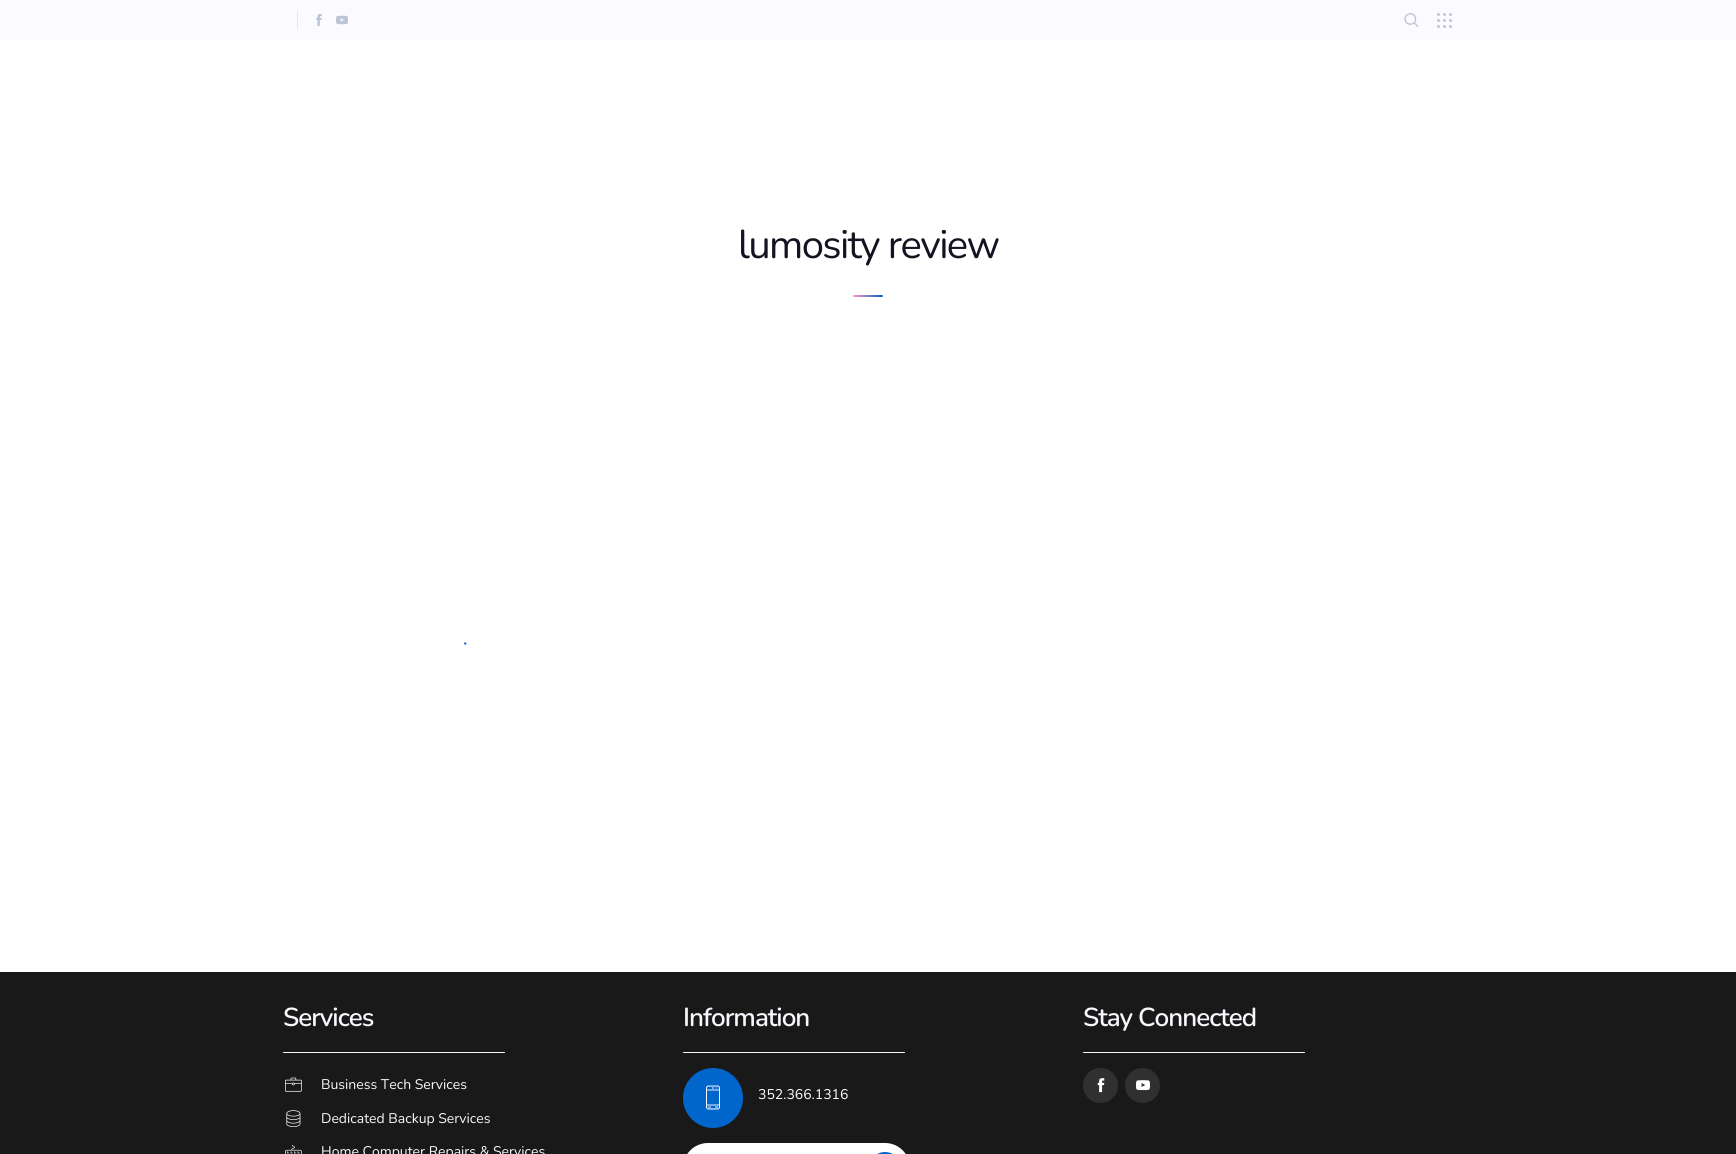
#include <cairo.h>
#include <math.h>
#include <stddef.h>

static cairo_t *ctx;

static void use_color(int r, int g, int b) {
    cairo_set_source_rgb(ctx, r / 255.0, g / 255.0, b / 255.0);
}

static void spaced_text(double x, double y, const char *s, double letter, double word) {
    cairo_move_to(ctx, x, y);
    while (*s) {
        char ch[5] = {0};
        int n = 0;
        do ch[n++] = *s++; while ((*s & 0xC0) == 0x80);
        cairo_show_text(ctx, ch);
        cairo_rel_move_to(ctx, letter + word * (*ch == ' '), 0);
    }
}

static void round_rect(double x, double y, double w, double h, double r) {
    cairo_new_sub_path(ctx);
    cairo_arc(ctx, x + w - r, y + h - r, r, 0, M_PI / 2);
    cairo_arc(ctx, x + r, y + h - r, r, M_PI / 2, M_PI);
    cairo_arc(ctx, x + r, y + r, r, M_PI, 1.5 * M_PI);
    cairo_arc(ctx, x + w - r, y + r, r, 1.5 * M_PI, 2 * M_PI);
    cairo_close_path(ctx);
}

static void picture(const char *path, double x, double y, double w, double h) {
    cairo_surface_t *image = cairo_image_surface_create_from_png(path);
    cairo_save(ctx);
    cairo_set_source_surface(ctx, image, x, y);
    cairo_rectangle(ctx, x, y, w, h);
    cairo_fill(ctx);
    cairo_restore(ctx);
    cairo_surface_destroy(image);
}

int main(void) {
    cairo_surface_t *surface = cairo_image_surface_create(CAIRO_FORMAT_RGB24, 1736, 1154);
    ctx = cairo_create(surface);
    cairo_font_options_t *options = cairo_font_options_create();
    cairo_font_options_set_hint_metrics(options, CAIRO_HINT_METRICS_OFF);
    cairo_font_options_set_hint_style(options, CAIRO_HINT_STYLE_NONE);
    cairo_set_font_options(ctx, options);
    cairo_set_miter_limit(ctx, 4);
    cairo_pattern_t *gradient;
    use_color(255, 255, 255);
    cairo_paint(ctx);
    use_color(251, 251, 255);
    cairo_rectangle(ctx, 0, 0, 1736, 40);
    cairo_fill(ctx);
    use_color(231, 235, 239);
    cairo_rectangle(ctx, 297, 10, 1, 20);
    cairo_fill(ctx);
    picture("img1.png", 316, 14, 6, 12);
    picture("img2.png", 336, 15, 12, 10);
    picture("img3.png", 1404, 13, 15, 14);
    use_color(188, 197, 214);
    cairo_arc(ctx, 1444.5, 14.5, 1.5, 0, 2 * M_PI);
    cairo_fill(ctx);
    cairo_arc(ctx, 1438.5, 14.5, 1.5, 0, 2 * M_PI);
    cairo_fill(ctx);
    cairo_arc(ctx, 1450.5, 14.5, 1.5, 0, 2 * M_PI);
    cairo_fill(ctx);
    cairo_arc(ctx, 1444.5, 20.5, 1.5, 0, 2 * M_PI);
    cairo_fill(ctx);
    cairo_arc(ctx, 1438.5, 20.5, 1.5, 0, 2 * M_PI);
    cairo_fill(ctx);
    cairo_arc(ctx, 1450.5, 20.5, 1.5, 0, 2 * M_PI);
    cairo_fill(ctx);
    cairo_arc(ctx, 1444.5, 26.5, 1.5, 0, 2 * M_PI);
    cairo_fill(ctx);
    cairo_arc(ctx, 1438.5, 26.5, 1.5, 0, 2 * M_PI);
    cairo_fill(ctx);
    cairo_arc(ctx, 1450.5, 26.5, 1.5, 0, 2 * M_PI);
    cairo_fill(ctx);
    cairo_select_font_face(ctx, "Nunito", CAIRO_FONT_SLANT_NORMAL, CAIRO_FONT_WEIGHT_NORMAL);
    cairo_set_font_size(ctx, 40);
    use_color(21, 18, 33);
    spaced_text(738, 258, "lumosity review", -1.6, 0);
    gradient = cairo_pattern_create_linear(853, 296, 883, 296);
    cairo_pattern_add_color_stop_rgba(gradient, 0, 0.984, 0.596, 0.792, 1);
    cairo_pattern_add_color_stop_rgba(gradient, 1, 0, 0.4, 0.8, 1);
    cairo_set_source(ctx, gradient);
    cairo_pattern_destroy(gradient);
    round_rect(853, 295, 30, 2, 1);
    cairo_fill(ctx);
    cairo_new_path(ctx);
    cairo_move_to(ctx, 465, 643.5);
    cairo_line_to(ctx, 465.5, 643.5);
    use_color(0, 102, 204);
    cairo_set_line_cap(ctx, CAIRO_LINE_CAP_ROUND);
    cairo_stroke(ctx);
    use_color(25, 25, 25);
    cairo_rectangle(ctx, 0, 972, 1736, 182);
    cairo_fill(ctx);
    cairo_select_font_face(ctx, "Nunito SemiBold", CAIRO_FONT_SLANT_NORMAL, CAIRO_FONT_WEIGHT_NORMAL);
    cairo_set_font_size(ctx, 26);
    use_color(247, 248, 253);
    spaced_text(283, 1026, "Services", -1, 0);
    round_rect(283, 1052, 222, 1, 0.5);
    cairo_fill(ctx);
    picture("img4.png", 285, 1077, 17, 15);
    cairo_select_font_face(ctx, "Nunito", CAIRO_FONT_SLANT_NORMAL, CAIRO_FONT_WEIGHT_NORMAL);
    cairo_set_font_size(ctx, 14);
    cairo_move_to(ctx, 321, 1089);
    cairo_show_text(ctx, "Business Tech Services");
    picture("img5.png", 286, 1110, 15, 18);
    cairo_move_to(ctx, 321, 1123);
    cairo_show_text(ctx, "Dedicated Backup Services");
    picture("img6.png", 285, 1145, 17, 9);
    cairo_move_to(ctx, 321, 1156);
    cairo_show_text(ctx, "Home Computer Repairs & Services");
    cairo_select_font_face(ctx, "Nunito SemiBold", CAIRO_FONT_SLANT_NORMAL, CAIRO_FONT_WEIGHT_NORMAL);
    cairo_set_font_size(ctx, 26);
    spaced_text(683, 1026, "Information", -1, 0);
    round_rect(683, 1052, 222, 1, 0.5);
    cairo_fill(ctx);
    use_color(0, 102, 204);
    cairo_arc(ctx, 713, 1098, 30, 0, 2 * M_PI);
    cairo_fill(ctx);
    picture("img7.png", 706, 1085, 14, 25);
    cairo_select_font_face(ctx, "Nunito", CAIRO_FONT_SLANT_NORMAL, CAIRO_FONT_WEIGHT_NORMAL);
    cairo_set_font_size(ctx, 14);
    use_color(255, 255, 255);
    cairo_move_to(ctx, 758, 1099);
    cairo_show_text(ctx, "352.366.1316");
    round_rect(683, 1143, 227, 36, 25);
    cairo_fill(ctx);
    use_color(0, 102, 204);
    round_rect(869, 1152, 32, 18, 16);
    cairo_fill(ctx);
    cairo_select_font_face(ctx, "Nunito SemiBold", CAIRO_FONT_SLANT_NORMAL, CAIRO_FONT_WEIGHT_NORMAL);
    cairo_set_font_size(ctx, 26);
    use_color(247, 248, 253);
    spaced_text(1083, 1026, "Stay Connected", -1, 0);
    round_rect(1083, 1052, 222, 1, 0.5);
    cairo_fill(ctx);
    use_color(48, 48, 48);
    cairo_arc(ctx, 1100.5, 1085.5, 17.5, 0, 2 * M_PI);
    cairo_fill(ctx);
    picture("img8.png", 1097, 1078, 8, 15);
    cairo_arc(ctx, 1142.5, 1085.5, 17.5, 0, 2 * M_PI);
    cairo_fill(ctx);
    picture("img9.png", 1136, 1080, 14, 11);
    cairo_surface_write_to_png(surface, "result.png");
    cairo_font_options_destroy(options);
    cairo_destroy(ctx);
    cairo_surface_destroy(surface);
    return 0;
}
